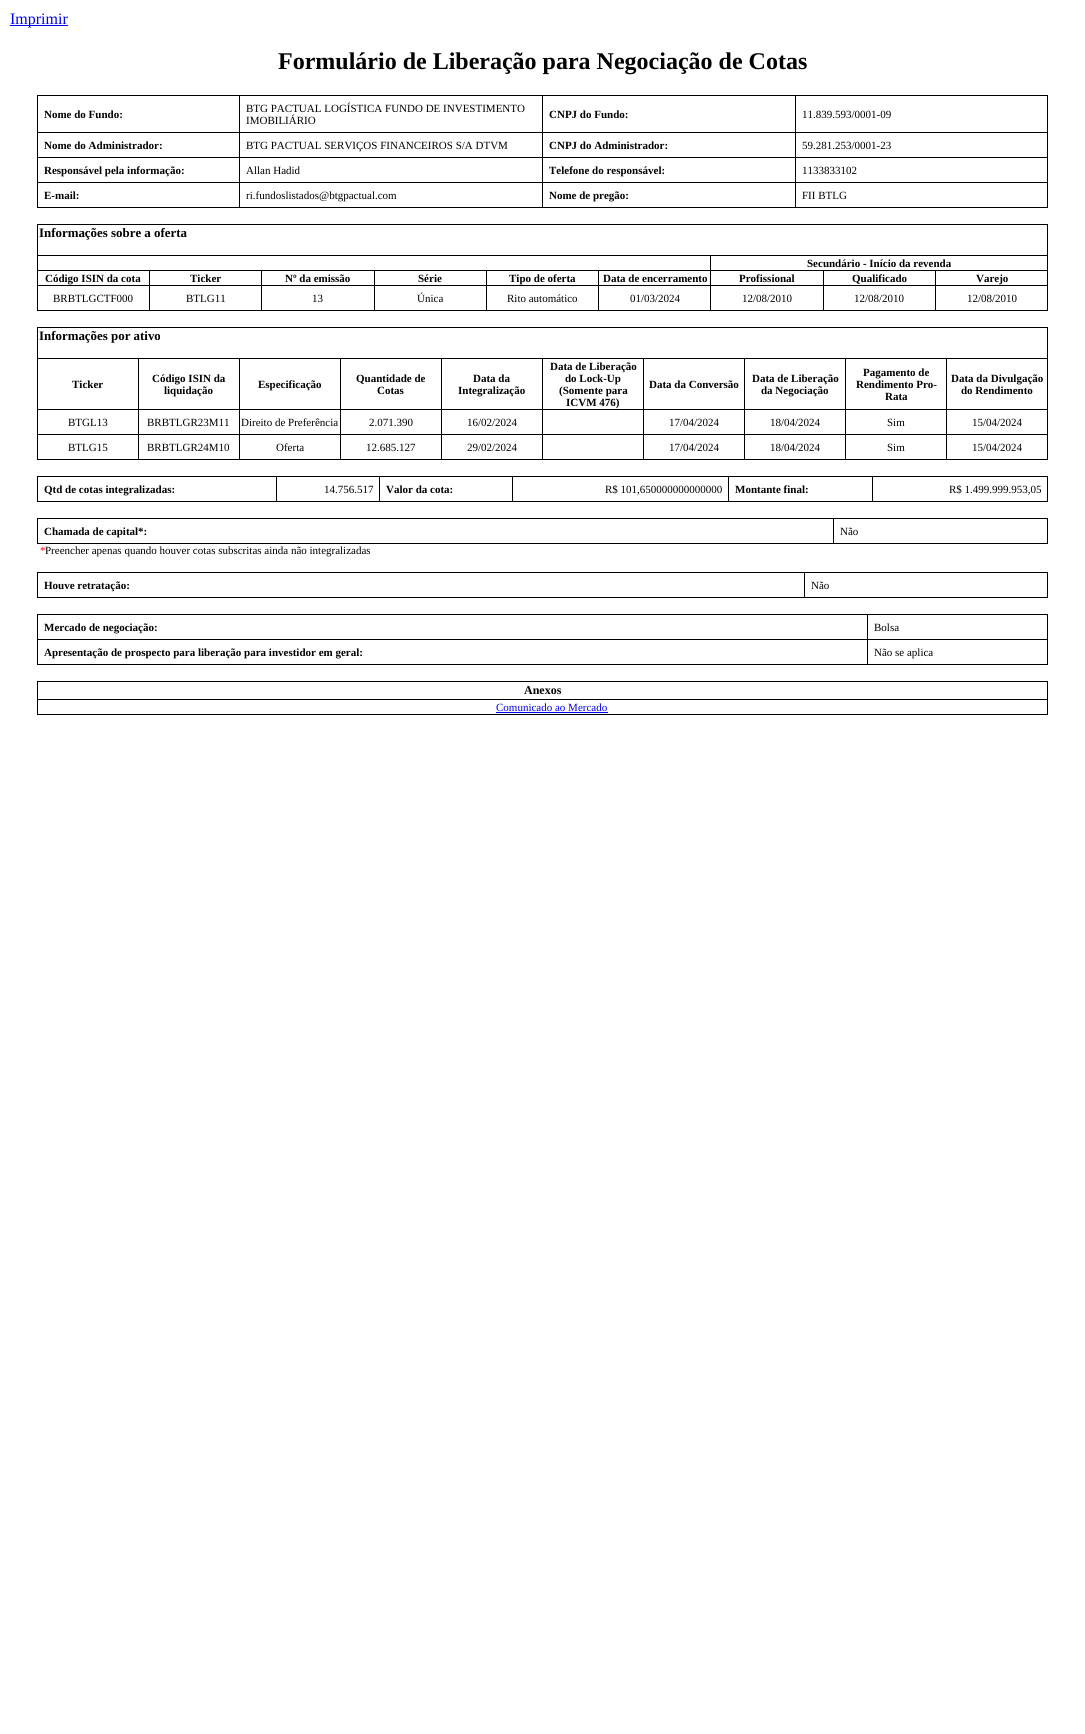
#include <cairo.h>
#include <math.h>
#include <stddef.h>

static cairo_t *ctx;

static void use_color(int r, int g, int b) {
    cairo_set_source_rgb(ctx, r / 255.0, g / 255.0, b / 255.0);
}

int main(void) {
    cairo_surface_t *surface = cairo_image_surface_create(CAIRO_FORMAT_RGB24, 1085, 1734);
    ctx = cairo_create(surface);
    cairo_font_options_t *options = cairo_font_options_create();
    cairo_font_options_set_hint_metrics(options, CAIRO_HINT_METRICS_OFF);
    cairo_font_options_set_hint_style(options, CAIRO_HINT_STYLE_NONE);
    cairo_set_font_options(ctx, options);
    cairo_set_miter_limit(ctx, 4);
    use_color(255, 255, 255);
    cairo_paint(ctx);
    use_color(0, 0, 238);
    cairo_rectangle(ctx, 10, 25, 58, 1);
    cairo_fill(ctx);
    cairo_select_font_face(ctx, "Liberation Serif", CAIRO_FONT_SLANT_NORMAL, CAIRO_FONT_WEIGHT_NORMAL);
    cairo_set_font_size(ctx, 16);
    cairo_move_to(ctx, 10, 24);
    cairo_show_text(ctx, "Imprimir");
    cairo_select_font_face(ctx, "Liberation Serif", CAIRO_FONT_SLANT_NORMAL, CAIRO_FONT_WEIGHT_BOLD);
    cairo_set_font_size(ctx, 24);
    use_color(0, 0, 0);
    cairo_move_to(ctx, 278, 69);
    cairo_show_text(ctx, "Formulário de Liberação para Negociação de Cotas");
    cairo_rectangle(ctx, 37, 95, 1011, 1);
    cairo_fill(ctx);
    cairo_rectangle(ctx, 1047, 95, 1, 113);
    cairo_fill(ctx);
    cairo_rectangle(ctx, 37, 207, 1011, 1);
    cairo_fill(ctx);
    cairo_rectangle(ctx, 37, 95, 1, 113);
    cairo_fill(ctx);
    cairo_set_font_size(ctx, 11);
    cairo_move_to(ctx, 44, 118);
    cairo_show_text(ctx, "Nome do Fundo:");
    cairo_rectangle(ctx, 795, 132, 253, 1);
    cairo_fill(ctx);
    cairo_rectangle(ctx, 795, 157, 253, 1);
    cairo_fill(ctx);
    cairo_rectangle(ctx, 795, 182, 253, 1);
    cairo_fill(ctx);
    cairo_rectangle(ctx, 795, 182, 1, 26);
    cairo_fill(ctx);
    cairo_rectangle(ctx, 542, 182, 254, 1);
    cairo_fill(ctx);
    cairo_rectangle(ctx, 795, 157, 1, 26);
    cairo_fill(ctx);
    cairo_rectangle(ctx, 542, 157, 254, 1);
    cairo_fill(ctx);
    cairo_rectangle(ctx, 795, 132, 1, 26);
    cairo_fill(ctx);
    cairo_rectangle(ctx, 542, 132, 254, 1);
    cairo_fill(ctx);
    cairo_rectangle(ctx, 542, 182, 1, 26);
    cairo_fill(ctx);
    cairo_rectangle(ctx, 239, 182, 304, 1);
    cairo_fill(ctx);
    cairo_rectangle(ctx, 542, 157, 1, 26);
    cairo_fill(ctx);
    cairo_rectangle(ctx, 239, 157, 304, 1);
    cairo_fill(ctx);
    cairo_rectangle(ctx, 542, 132, 1, 26);
    cairo_fill(ctx);
    cairo_rectangle(ctx, 239, 132, 304, 1);
    cairo_fill(ctx);
    cairo_rectangle(ctx, 239, 182, 1, 26);
    cairo_fill(ctx);
    cairo_rectangle(ctx, 37, 182, 203, 1);
    cairo_fill(ctx);
    cairo_rectangle(ctx, 239, 157, 1, 26);
    cairo_fill(ctx);
    cairo_rectangle(ctx, 37, 157, 203, 1);
    cairo_fill(ctx);
    cairo_rectangle(ctx, 239, 132, 1, 26);
    cairo_fill(ctx);
    cairo_rectangle(ctx, 37, 132, 203, 1);
    cairo_fill(ctx);
    cairo_rectangle(ctx, 239, 95, 1, 38);
    cairo_fill(ctx);
    cairo_select_font_face(ctx, "Liberation Serif", CAIRO_FONT_SLANT_NORMAL, CAIRO_FONT_WEIGHT_NORMAL);
    cairo_move_to(ctx, 246, 112);
    cairo_show_text(ctx, "BTG PACTUAL LOGÍSTICA FUNDO DE INVESTIMENTO");
    cairo_move_to(ctx, 246, 124);
    cairo_show_text(ctx, "IMOBILIÁRIO");
    cairo_rectangle(ctx, 542, 95, 1, 38);
    cairo_fill(ctx);
    cairo_select_font_face(ctx, "Liberation Serif", CAIRO_FONT_SLANT_NORMAL, CAIRO_FONT_WEIGHT_BOLD);
    cairo_move_to(ctx, 549, 118);
    cairo_show_text(ctx, "CNPJ do Fundo:");
    cairo_rectangle(ctx, 795, 95, 1, 38);
    cairo_fill(ctx);
    cairo_select_font_face(ctx, "Liberation Serif", CAIRO_FONT_SLANT_NORMAL, CAIRO_FONT_WEIGHT_NORMAL);
    cairo_move_to(ctx, 802, 118);
    cairo_show_text(ctx, "11.839.593/0001-09");
    cairo_select_font_face(ctx, "Liberation Serif", CAIRO_FONT_SLANT_NORMAL, CAIRO_FONT_WEIGHT_BOLD);
    cairo_move_to(ctx, 44, 149);
    cairo_show_text(ctx, "Nome do Administrador:");
    cairo_select_font_face(ctx, "Liberation Serif", CAIRO_FONT_SLANT_NORMAL, CAIRO_FONT_WEIGHT_NORMAL);
    cairo_move_to(ctx, 246, 149);
    cairo_show_text(ctx, "BTG PACTUAL SERVIÇOS FINANCEIROS S/A DTVM");
    cairo_select_font_face(ctx, "Liberation Serif", CAIRO_FONT_SLANT_NORMAL, CAIRO_FONT_WEIGHT_BOLD);
    cairo_move_to(ctx, 549, 149);
    cairo_show_text(ctx, "CNPJ do Administrador:");
    cairo_select_font_face(ctx, "Liberation Serif", CAIRO_FONT_SLANT_NORMAL, CAIRO_FONT_WEIGHT_NORMAL);
    cairo_move_to(ctx, 802, 149);
    cairo_show_text(ctx, "59.281.253/0001-23");
    cairo_select_font_face(ctx, "Liberation Serif", CAIRO_FONT_SLANT_NORMAL, CAIRO_FONT_WEIGHT_BOLD);
    cairo_move_to(ctx, 44, 174);
    cairo_show_text(ctx, "Responsável pela informação:");
    cairo_select_font_face(ctx, "Liberation Serif", CAIRO_FONT_SLANT_NORMAL, CAIRO_FONT_WEIGHT_NORMAL);
    cairo_move_to(ctx, 246, 174);
    cairo_show_text(ctx, "Allan Hadid");
    cairo_select_font_face(ctx, "Liberation Serif", CAIRO_FONT_SLANT_NORMAL, CAIRO_FONT_WEIGHT_BOLD);
    cairo_move_to(ctx, 549, 174);
    cairo_show_text(ctx, "Telefone do responsável:");
    cairo_select_font_face(ctx, "Liberation Serif", CAIRO_FONT_SLANT_NORMAL, CAIRO_FONT_WEIGHT_NORMAL);
    cairo_move_to(ctx, 802, 174);
    cairo_show_text(ctx, "1133833102");
    cairo_select_font_face(ctx, "Liberation Serif", CAIRO_FONT_SLANT_NORMAL, CAIRO_FONT_WEIGHT_BOLD);
    cairo_move_to(ctx, 44, 199);
    cairo_show_text(ctx, "E-mail:");
    cairo_select_font_face(ctx, "Liberation Serif", CAIRO_FONT_SLANT_NORMAL, CAIRO_FONT_WEIGHT_NORMAL);
    cairo_move_to(ctx, 246, 199);
    cairo_show_text(ctx, "ri.fundoslistados@btgpactual.com");
    cairo_select_font_face(ctx, "Liberation Serif", CAIRO_FONT_SLANT_NORMAL, CAIRO_FONT_WEIGHT_BOLD);
    cairo_move_to(ctx, 549, 199);
    cairo_show_text(ctx, "Nome de pregão:");
    cairo_select_font_face(ctx, "Liberation Serif", CAIRO_FONT_SLANT_NORMAL, CAIRO_FONT_WEIGHT_NORMAL);
    cairo_move_to(ctx, 802, 199);
    cairo_show_text(ctx, "FII BTLG");
    cairo_rectangle(ctx, 37, 224, 1011, 1);
    cairo_fill(ctx);
    cairo_rectangle(ctx, 1047, 224, 1, 87);
    cairo_fill(ctx);
    cairo_rectangle(ctx, 37, 310, 1011, 1);
    cairo_fill(ctx);
    cairo_rectangle(ctx, 37, 224, 1, 87);
    cairo_fill(ctx);
    cairo_select_font_face(ctx, "Liberation Serif", CAIRO_FONT_SLANT_NORMAL, CAIRO_FONT_WEIGHT_BOLD);
    cairo_set_font_size(ctx, 12.9);
    cairo_move_to(ctx, 39, 237);
    cairo_show_text(ctx, "Informações sobre a oferta");
    cairo_rectangle(ctx, 710, 255, 338, 1);
    cairo_fill(ctx);
    cairo_rectangle(ctx, 935, 270, 113, 1);
    cairo_fill(ctx);
    cairo_rectangle(ctx, 935, 285, 113, 1);
    cairo_fill(ctx);
    cairo_rectangle(ctx, 935, 285, 1, 26);
    cairo_fill(ctx);
    cairo_rectangle(ctx, 823, 285, 113, 1);
    cairo_fill(ctx);
    cairo_rectangle(ctx, 935, 270, 1, 16);
    cairo_fill(ctx);
    cairo_rectangle(ctx, 823, 270, 113, 1);
    cairo_fill(ctx);
    cairo_rectangle(ctx, 823, 285, 1, 26);
    cairo_fill(ctx);
    cairo_rectangle(ctx, 710, 285, 114, 1);
    cairo_fill(ctx);
    cairo_rectangle(ctx, 823, 270, 1, 16);
    cairo_fill(ctx);
    cairo_rectangle(ctx, 710, 270, 114, 1);
    cairo_fill(ctx);
    cairo_rectangle(ctx, 710, 285, 1, 26);
    cairo_fill(ctx);
    cairo_rectangle(ctx, 598, 285, 113, 1);
    cairo_fill(ctx);
    cairo_rectangle(ctx, 710, 270, 1, 16);
    cairo_fill(ctx);
    cairo_rectangle(ctx, 598, 270, 113, 1);
    cairo_fill(ctx);
    cairo_rectangle(ctx, 710, 255, 1, 16);
    cairo_fill(ctx);
    cairo_rectangle(ctx, 37, 255, 674, 1);
    cairo_fill(ctx);
    cairo_set_font_size(ctx, 11);
    cairo_move_to(ctx, 807, 267);
    cairo_show_text(ctx, "Secundário - Início da revenda");
    cairo_rectangle(ctx, 598, 285, 1, 26);
    cairo_fill(ctx);
    cairo_rectangle(ctx, 486, 285, 113, 1);
    cairo_fill(ctx);
    cairo_rectangle(ctx, 598, 270, 1, 16);
    cairo_fill(ctx);
    cairo_rectangle(ctx, 486, 270, 113, 1);
    cairo_fill(ctx);
    cairo_rectangle(ctx, 486, 285, 1, 26);
    cairo_fill(ctx);
    cairo_rectangle(ctx, 374, 285, 113, 1);
    cairo_fill(ctx);
    cairo_rectangle(ctx, 486, 270, 1, 16);
    cairo_fill(ctx);
    cairo_rectangle(ctx, 374, 270, 113, 1);
    cairo_fill(ctx);
    cairo_rectangle(ctx, 374, 285, 1, 26);
    cairo_fill(ctx);
    cairo_rectangle(ctx, 261, 285, 114, 1);
    cairo_fill(ctx);
    cairo_rectangle(ctx, 374, 270, 1, 16);
    cairo_fill(ctx);
    cairo_rectangle(ctx, 261, 270, 114, 1);
    cairo_fill(ctx);
    cairo_rectangle(ctx, 261, 285, 1, 26);
    cairo_fill(ctx);
    cairo_rectangle(ctx, 149, 285, 113, 1);
    cairo_fill(ctx);
    cairo_rectangle(ctx, 261, 270, 1, 16);
    cairo_fill(ctx);
    cairo_rectangle(ctx, 149, 270, 113, 1);
    cairo_fill(ctx);
    cairo_rectangle(ctx, 149, 285, 1, 26);
    cairo_fill(ctx);
    cairo_rectangle(ctx, 37, 285, 113, 1);
    cairo_fill(ctx);
    cairo_rectangle(ctx, 149, 270, 1, 16);
    cairo_fill(ctx);
    cairo_rectangle(ctx, 37, 270, 113, 1);
    cairo_fill(ctx);
    cairo_move_to(ctx, 45, 282);
    cairo_show_text(ctx, "Código ISIN da cota");
    cairo_move_to(ctx, 190, 282);
    cairo_show_text(ctx, "Ticker");
    cairo_move_to(ctx, 285, 282);
    cairo_show_text(ctx, "Nº da emissão");
    cairo_move_to(ctx, 418, 282);
    cairo_show_text(ctx, "Série");
    cairo_move_to(ctx, 509, 282);
    cairo_show_text(ctx, "Tipo de oferta");
    cairo_move_to(ctx, 603, 282);
    cairo_show_text(ctx, "Data de encerramento");
    cairo_move_to(ctx, 739, 282);
    cairo_show_text(ctx, "Profissional");
    cairo_move_to(ctx, 852, 282);
    cairo_show_text(ctx, "Qualificado");
    cairo_move_to(ctx, 976, 282);
    cairo_show_text(ctx, "Varejo");
    cairo_select_font_face(ctx, "Liberation Serif", CAIRO_FONT_SLANT_NORMAL, CAIRO_FONT_WEIGHT_NORMAL);
    cairo_move_to(ctx, 53, 302);
    cairo_show_text(ctx, "BRBTLGCTF000");
    cairo_move_to(ctx, 186, 302);
    cairo_show_text(ctx, "BTLG11");
    cairo_move_to(ctx, 312, 302);
    cairo_show_text(ctx, "13");
    cairo_move_to(ctx, 417, 302);
    cairo_show_text(ctx, "Única");
    cairo_move_to(ctx, 507, 302);
    cairo_show_text(ctx, "Rito automático");
    cairo_move_to(ctx, 630, 302);
    cairo_show_text(ctx, "01/03/2024");
    cairo_move_to(ctx, 742, 302);
    cairo_show_text(ctx, "12/08/2010");
    cairo_move_to(ctx, 854, 302);
    cairo_show_text(ctx, "12/08/2010");
    cairo_move_to(ctx, 967, 302);
    cairo_show_text(ctx, "12/08/2010");
    cairo_rectangle(ctx, 37, 327, 1011, 1);
    cairo_fill(ctx);
    cairo_rectangle(ctx, 1047, 327, 1, 133);
    cairo_fill(ctx);
    cairo_rectangle(ctx, 37, 459, 1011, 1);
    cairo_fill(ctx);
    cairo_rectangle(ctx, 37, 327, 1, 133);
    cairo_fill(ctx);
    cairo_select_font_face(ctx, "Liberation Serif", CAIRO_FONT_SLANT_NORMAL, CAIRO_FONT_WEIGHT_BOLD);
    cairo_set_font_size(ctx, 12.9);
    cairo_move_to(ctx, 39, 340);
    cairo_show_text(ctx, "Informações por ativo");
    cairo_rectangle(ctx, 946, 358, 102, 1);
    cairo_fill(ctx);
    cairo_rectangle(ctx, 946, 409, 102, 1);
    cairo_fill(ctx);
    cairo_rectangle(ctx, 946, 434, 102, 1);
    cairo_fill(ctx);
    cairo_rectangle(ctx, 946, 434, 1, 26);
    cairo_fill(ctx);
    cairo_rectangle(ctx, 845, 434, 102, 1);
    cairo_fill(ctx);
    cairo_rectangle(ctx, 946, 409, 1, 26);
    cairo_fill(ctx);
    cairo_rectangle(ctx, 845, 409, 102, 1);
    cairo_fill(ctx);
    cairo_rectangle(ctx, 946, 358, 1, 52);
    cairo_fill(ctx);
    cairo_rectangle(ctx, 845, 358, 102, 1);
    cairo_fill(ctx);
    cairo_rectangle(ctx, 845, 434, 1, 26);
    cairo_fill(ctx);
    cairo_rectangle(ctx, 744, 434, 102, 1);
    cairo_fill(ctx);
    cairo_rectangle(ctx, 845, 409, 1, 26);
    cairo_fill(ctx);
    cairo_rectangle(ctx, 744, 409, 102, 1);
    cairo_fill(ctx);
    cairo_rectangle(ctx, 845, 358, 1, 52);
    cairo_fill(ctx);
    cairo_rectangle(ctx, 744, 358, 102, 1);
    cairo_fill(ctx);
    cairo_rectangle(ctx, 744, 434, 1, 26);
    cairo_fill(ctx);
    cairo_rectangle(ctx, 643, 434, 102, 1);
    cairo_fill(ctx);
    cairo_rectangle(ctx, 744, 409, 1, 26);
    cairo_fill(ctx);
    cairo_rectangle(ctx, 643, 409, 102, 1);
    cairo_fill(ctx);
    cairo_rectangle(ctx, 744, 358, 1, 52);
    cairo_fill(ctx);
    cairo_rectangle(ctx, 643, 358, 102, 1);
    cairo_fill(ctx);
    cairo_rectangle(ctx, 643, 434, 1, 26);
    cairo_fill(ctx);
    cairo_rectangle(ctx, 542, 434, 102, 1);
    cairo_fill(ctx);
    cairo_rectangle(ctx, 643, 409, 1, 26);
    cairo_fill(ctx);
    cairo_rectangle(ctx, 542, 409, 102, 1);
    cairo_fill(ctx);
    cairo_rectangle(ctx, 643, 358, 1, 52);
    cairo_fill(ctx);
    cairo_rectangle(ctx, 542, 358, 102, 1);
    cairo_fill(ctx);
    cairo_rectangle(ctx, 542, 434, 1, 26);
    cairo_fill(ctx);
    cairo_rectangle(ctx, 441, 434, 102, 1);
    cairo_fill(ctx);
    cairo_rectangle(ctx, 542, 409, 1, 26);
    cairo_fill(ctx);
    cairo_rectangle(ctx, 441, 409, 102, 1);
    cairo_fill(ctx);
    cairo_rectangle(ctx, 542, 358, 1, 52);
    cairo_fill(ctx);
    cairo_rectangle(ctx, 441, 358, 102, 1);
    cairo_fill(ctx);
    cairo_rectangle(ctx, 441, 434, 1, 26);
    cairo_fill(ctx);
    cairo_rectangle(ctx, 340, 434, 102, 1);
    cairo_fill(ctx);
    cairo_rectangle(ctx, 441, 409, 1, 26);
    cairo_fill(ctx);
    cairo_rectangle(ctx, 340, 409, 102, 1);
    cairo_fill(ctx);
    cairo_rectangle(ctx, 441, 358, 1, 52);
    cairo_fill(ctx);
    cairo_rectangle(ctx, 340, 358, 102, 1);
    cairo_fill(ctx);
    cairo_rectangle(ctx, 340, 434, 1, 26);
    cairo_fill(ctx);
    cairo_rectangle(ctx, 239, 434, 102, 1);
    cairo_fill(ctx);
    cairo_rectangle(ctx, 340, 409, 1, 26);
    cairo_fill(ctx);
    cairo_rectangle(ctx, 239, 409, 102, 1);
    cairo_fill(ctx);
    cairo_rectangle(ctx, 340, 358, 1, 52);
    cairo_fill(ctx);
    cairo_rectangle(ctx, 239, 358, 102, 1);
    cairo_fill(ctx);
    cairo_rectangle(ctx, 239, 434, 1, 26);
    cairo_fill(ctx);
    cairo_rectangle(ctx, 138, 434, 102, 1);
    cairo_fill(ctx);
    cairo_rectangle(ctx, 239, 409, 1, 26);
    cairo_fill(ctx);
    cairo_rectangle(ctx, 138, 409, 102, 1);
    cairo_fill(ctx);
    cairo_rectangle(ctx, 239, 358, 1, 52);
    cairo_fill(ctx);
    cairo_rectangle(ctx, 138, 358, 102, 1);
    cairo_fill(ctx);
    cairo_rectangle(ctx, 138, 434, 1, 26);
    cairo_fill(ctx);
    cairo_rectangle(ctx, 37, 434, 102, 1);
    cairo_fill(ctx);
    cairo_rectangle(ctx, 138, 409, 1, 26);
    cairo_fill(ctx);
    cairo_rectangle(ctx, 37, 409, 102, 1);
    cairo_fill(ctx);
    cairo_rectangle(ctx, 138, 358, 1, 52);
    cairo_fill(ctx);
    cairo_rectangle(ctx, 37, 358, 102, 1);
    cairo_fill(ctx);
    cairo_set_font_size(ctx, 11);
    cairo_move_to(ctx, 72, 388);
    cairo_show_text(ctx, "Ticker");
    cairo_move_to(ctx, 152, 382);
    cairo_show_text(ctx, "Código ISIN da");
    cairo_move_to(ctx, 164, 394);
    cairo_show_text(ctx, "liquidação");
    cairo_move_to(ctx, 258, 388);
    cairo_show_text(ctx, "Especificação");
    cairo_move_to(ctx, 356, 382);
    cairo_show_text(ctx, "Quantidade de");
    cairo_move_to(ctx, 377, 394);
    cairo_show_text(ctx, "Cotas");
    cairo_move_to(ctx, 473, 382);
    cairo_show_text(ctx, "Data da");
    cairo_move_to(ctx, 458, 394);
    cairo_show_text(ctx, "Integralização");
    cairo_move_to(ctx, 550, 370);
    cairo_show_text(ctx, "Data de Liberação");
    cairo_move_to(ctx, 565, 382);
    cairo_show_text(ctx, "do Lock-Up");
    cairo_move_to(ctx, 559, 394);
    cairo_show_text(ctx, "(Somente para");
    cairo_move_to(ctx, 566, 406);
    cairo_show_text(ctx, "ICVM 476)");
    cairo_move_to(ctx, 649, 388);
    cairo_show_text(ctx, "Data da Conversão");
    cairo_move_to(ctx, 752, 382);
    cairo_show_text(ctx, "Data de Liberação");
    cairo_move_to(ctx, 761, 394);
    cairo_show_text(ctx, "da Negociação");
    cairo_move_to(ctx, 863, 376);
    cairo_show_text(ctx, "Pagamento de");
    cairo_move_to(ctx, 856, 388);
    cairo_show_text(ctx, "Rendimento Pro-");
    cairo_move_to(ctx, 885, 400);
    cairo_show_text(ctx, "Rata");
    cairo_move_to(ctx, 951, 382);
    cairo_show_text(ctx, "Data da Divulgação");
    cairo_move_to(ctx, 961, 394);
    cairo_show_text(ctx, "do Rendimento");
    cairo_select_font_face(ctx, "Liberation Serif", CAIRO_FONT_SLANT_NORMAL, CAIRO_FONT_WEIGHT_NORMAL);
    cairo_move_to(ctx, 68, 426);
    cairo_show_text(ctx, "BTGL13");
    cairo_move_to(ctx, 147, 426);
    cairo_show_text(ctx, "BRBTLGR23M11");
    cairo_move_to(ctx, 241, 426);
    cairo_show_text(ctx, "Direito de Preferência");
    cairo_move_to(ctx, 369, 426);
    cairo_show_text(ctx, "2.071.390");
    cairo_move_to(ctx, 467, 426);
    cairo_show_text(ctx, "16/02/2024");
    cairo_move_to(ctx, 669, 426);
    cairo_show_text(ctx, "17/04/2024");
    cairo_move_to(ctx, 770, 426);
    cairo_show_text(ctx, "18/04/2024");
    cairo_move_to(ctx, 887, 426);
    cairo_show_text(ctx, "Sim");
    cairo_move_to(ctx, 972, 426);
    cairo_show_text(ctx, "15/04/2024");
    cairo_move_to(ctx, 68, 451);
    cairo_show_text(ctx, "BTLG15");
    cairo_move_to(ctx, 147, 451);
    cairo_show_text(ctx, "BRBTLGR24M10");
    cairo_move_to(ctx, 276, 451);
    cairo_show_text(ctx, "Oferta");
    cairo_move_to(ctx, 366, 451);
    cairo_show_text(ctx, "12.685.127");
    cairo_move_to(ctx, 467, 451);
    cairo_show_text(ctx, "29/02/2024");
    cairo_move_to(ctx, 669, 451);
    cairo_show_text(ctx, "17/04/2024");
    cairo_move_to(ctx, 770, 451);
    cairo_show_text(ctx, "18/04/2024");
    cairo_move_to(ctx, 887, 451);
    cairo_show_text(ctx, "Sim");
    cairo_move_to(ctx, 972, 451);
    cairo_show_text(ctx, "15/04/2024");
    cairo_rectangle(ctx, 37, 476, 1011, 1);
    cairo_fill(ctx);
    cairo_rectangle(ctx, 1047, 476, 1, 26);
    cairo_fill(ctx);
    cairo_rectangle(ctx, 37, 501, 1011, 1);
    cairo_fill(ctx);
    cairo_rectangle(ctx, 37, 476, 1, 26);
    cairo_fill(ctx);
    cairo_select_font_face(ctx, "Liberation Serif", CAIRO_FONT_SLANT_NORMAL, CAIRO_FONT_WEIGHT_BOLD);
    cairo_move_to(ctx, 44, 493);
    cairo_show_text(ctx, "Qtd de cotas integralizadas:");
    cairo_rectangle(ctx, 276, 476, 1, 26);
    cairo_fill(ctx);
    cairo_select_font_face(ctx, "Liberation Serif", CAIRO_FONT_SLANT_NORMAL, CAIRO_FONT_WEIGHT_NORMAL);
    cairo_move_to(ctx, 324, 493);
    cairo_show_text(ctx, "14.756.517");
    cairo_rectangle(ctx, 379, 476, 1, 26);
    cairo_fill(ctx);
    cairo_select_font_face(ctx, "Liberation Serif", CAIRO_FONT_SLANT_NORMAL, CAIRO_FONT_WEIGHT_BOLD);
    cairo_move_to(ctx, 386, 493);
    cairo_show_text(ctx, "Valor da cota:");
    cairo_rectangle(ctx, 512, 476, 1, 26);
    cairo_fill(ctx);
    cairo_select_font_face(ctx, "Liberation Serif", CAIRO_FONT_SLANT_NORMAL, CAIRO_FONT_WEIGHT_NORMAL);
    cairo_move_to(ctx, 605, 493);
    cairo_show_text(ctx, "R$ 101,650000000000000");
    cairo_rectangle(ctx, 728, 476, 1, 26);
    cairo_fill(ctx);
    cairo_select_font_face(ctx, "Liberation Serif", CAIRO_FONT_SLANT_NORMAL, CAIRO_FONT_WEIGHT_BOLD);
    cairo_move_to(ctx, 735, 493);
    cairo_show_text(ctx, "Montante final:");
    cairo_rectangle(ctx, 872, 476, 1, 26);
    cairo_fill(ctx);
    cairo_select_font_face(ctx, "Liberation Serif", CAIRO_FONT_SLANT_NORMAL, CAIRO_FONT_WEIGHT_NORMAL);
    cairo_move_to(ctx, 949, 493);
    cairo_show_text(ctx, "R$ 1.499.999.953,05");
    cairo_rectangle(ctx, 37, 518, 1011, 1);
    cairo_fill(ctx);
    cairo_rectangle(ctx, 1047, 518, 1, 26);
    cairo_fill(ctx);
    cairo_rectangle(ctx, 37, 543, 1011, 1);
    cairo_fill(ctx);
    cairo_rectangle(ctx, 37, 518, 1, 26);
    cairo_fill(ctx);
    cairo_select_font_face(ctx, "Liberation Serif", CAIRO_FONT_SLANT_NORMAL, CAIRO_FONT_WEIGHT_BOLD);
    cairo_move_to(ctx, 44, 535);
    cairo_show_text(ctx, "Chamada de capital*:");
    cairo_rectangle(ctx, 833, 518, 1, 26);
    cairo_fill(ctx);
    cairo_select_font_face(ctx, "Liberation Serif", CAIRO_FONT_SLANT_NORMAL, CAIRO_FONT_WEIGHT_NORMAL);
    cairo_move_to(ctx, 840, 535);
    cairo_show_text(ctx, "Não");
    use_color(255, 0, 0);
    cairo_move_to(ctx, 40, 554);
    cairo_show_text(ctx, "*");
    use_color(0, 0, 0);
    cairo_move_to(ctx, 45, 554);
    cairo_show_text(ctx, "Preencher apenas quando houver cotas subscritas ainda não integralizadas");
    cairo_rectangle(ctx, 37, 572, 1011, 1);
    cairo_fill(ctx);
    cairo_rectangle(ctx, 1047, 572, 1, 26);
    cairo_fill(ctx);
    cairo_rectangle(ctx, 37, 597, 1011, 1);
    cairo_fill(ctx);
    cairo_rectangle(ctx, 37, 572, 1, 26);
    cairo_fill(ctx);
    cairo_select_font_face(ctx, "Liberation Serif", CAIRO_FONT_SLANT_NORMAL, CAIRO_FONT_WEIGHT_BOLD);
    cairo_move_to(ctx, 44, 589);
    cairo_show_text(ctx, "Houve retratação:");
    cairo_rectangle(ctx, 804, 572, 1, 26);
    cairo_fill(ctx);
    cairo_select_font_face(ctx, "Liberation Serif", CAIRO_FONT_SLANT_NORMAL, CAIRO_FONT_WEIGHT_NORMAL);
    cairo_move_to(ctx, 811, 589);
    cairo_show_text(ctx, "Não");
    cairo_rectangle(ctx, 37, 614, 1011, 1);
    cairo_fill(ctx);
    cairo_rectangle(ctx, 1047, 614, 1, 51);
    cairo_fill(ctx);
    cairo_rectangle(ctx, 37, 664, 1011, 1);
    cairo_fill(ctx);
    cairo_rectangle(ctx, 37, 614, 1, 51);
    cairo_fill(ctx);
    cairo_select_font_face(ctx, "Liberation Serif", CAIRO_FONT_SLANT_NORMAL, CAIRO_FONT_WEIGHT_BOLD);
    cairo_move_to(ctx, 44, 631);
    cairo_show_text(ctx, "Mercado de negociação:");
    cairo_rectangle(ctx, 867, 639, 181, 1);
    cairo_fill(ctx);
    cairo_rectangle(ctx, 867, 639, 1, 26);
    cairo_fill(ctx);
    cairo_rectangle(ctx, 37, 639, 831, 1);
    cairo_fill(ctx);
    cairo_rectangle(ctx, 867, 614, 1, 26);
    cairo_fill(ctx);
    cairo_select_font_face(ctx, "Liberation Serif", CAIRO_FONT_SLANT_NORMAL, CAIRO_FONT_WEIGHT_NORMAL);
    cairo_move_to(ctx, 874, 631);
    cairo_show_text(ctx, "Bolsa");
    cairo_select_font_face(ctx, "Liberation Serif", CAIRO_FONT_SLANT_NORMAL, CAIRO_FONT_WEIGHT_BOLD);
    cairo_move_to(ctx, 44, 656);
    cairo_show_text(ctx, "Apresentação de prospecto para liberação para investidor em geral:");
    cairo_select_font_face(ctx, "Liberation Serif", CAIRO_FONT_SLANT_NORMAL, CAIRO_FONT_WEIGHT_NORMAL);
    cairo_move_to(ctx, 874, 656);
    cairo_show_text(ctx, "Não se aplica");
    cairo_rectangle(ctx, 37, 681, 1011, 1);
    cairo_fill(ctx);
    cairo_rectangle(ctx, 1047, 681, 1, 34);
    cairo_fill(ctx);
    cairo_rectangle(ctx, 37, 714, 1011, 1);
    cairo_fill(ctx);
    cairo_rectangle(ctx, 37, 681, 1, 34);
    cairo_fill(ctx);
    cairo_select_font_face(ctx, "Liberation Serif", CAIRO_FONT_SLANT_NORMAL, CAIRO_FONT_WEIGHT_BOLD);
    cairo_set_font_size(ctx, 12);
    cairo_move_to(ctx, 524, 694);
    cairo_show_text(ctx, "Anexos");
    cairo_rectangle(ctx, 37, 699, 1011, 1);
    cairo_fill(ctx);
    cairo_select_font_face(ctx, "Liberation Serif", CAIRO_FONT_SLANT_NORMAL, CAIRO_FONT_WEIGHT_NORMAL);
    cairo_set_font_size(ctx, 11);
    use_color(0, 0, 238);
    cairo_move_to(ctx, 496, 711);
    cairo_show_text(ctx, "Comunicado ao Mercado");
    cairo_rectangle(ctx, 496, 712, 112, 1);
    cairo_fill(ctx);
    cairo_surface_write_to_png(surface, "result.png");
    cairo_font_options_destroy(options);
    cairo_destroy(ctx);
    cairo_surface_destroy(surface);
    return 0;
}
